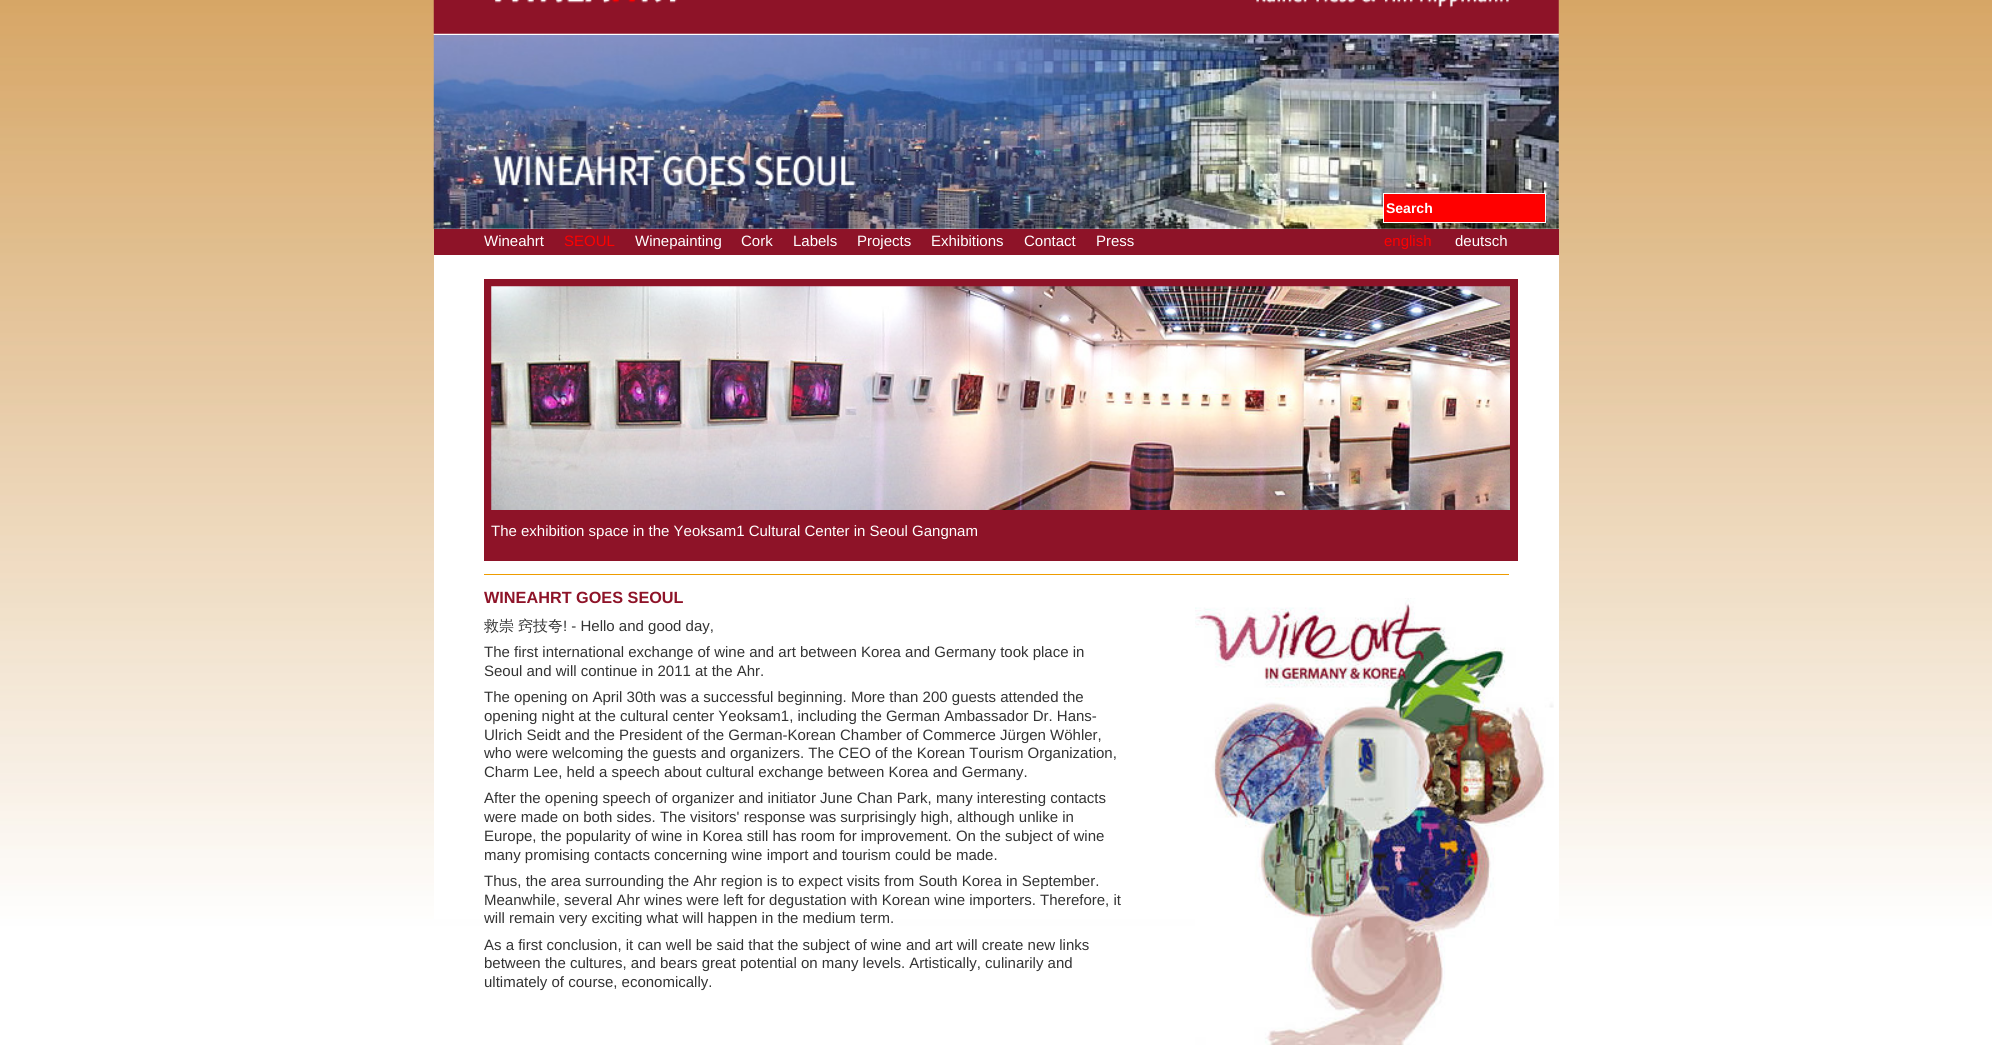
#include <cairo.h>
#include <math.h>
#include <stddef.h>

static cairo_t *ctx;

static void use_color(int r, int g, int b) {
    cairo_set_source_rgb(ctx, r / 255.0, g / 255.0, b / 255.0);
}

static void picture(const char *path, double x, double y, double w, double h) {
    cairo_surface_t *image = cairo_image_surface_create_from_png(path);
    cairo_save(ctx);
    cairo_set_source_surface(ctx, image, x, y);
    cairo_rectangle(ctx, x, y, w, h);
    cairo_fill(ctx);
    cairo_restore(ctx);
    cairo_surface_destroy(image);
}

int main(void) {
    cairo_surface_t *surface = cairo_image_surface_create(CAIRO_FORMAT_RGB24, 1992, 1045);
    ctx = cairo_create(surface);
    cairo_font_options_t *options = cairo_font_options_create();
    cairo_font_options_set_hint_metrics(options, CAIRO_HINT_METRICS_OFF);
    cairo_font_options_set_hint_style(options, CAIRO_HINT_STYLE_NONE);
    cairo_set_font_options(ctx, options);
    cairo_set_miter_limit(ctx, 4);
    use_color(255, 255, 255);
    cairo_paint(ctx);
    picture("img1.png", 0, 0, 1992, 1045);
    picture("img2.png", 433, 0, 1126, 35);
    use_color(255, 255, 255);
    cairo_rectangle(ctx, 434, 228, 1125, 1);
    cairo_fill(ctx);
    picture("img3.png", 433, 35, 1126, 194);
    use_color(255, 0, 0);
    cairo_rectangle(ctx, 1383.5, 193.5, 162, 29);
    cairo_fill_preserve(ctx);
    use_color(255, 255, 255);
    cairo_set_line_width(ctx, 1);
    cairo_stroke(ctx);
    cairo_select_font_face(ctx, "Liberation Sans", CAIRO_FONT_SLANT_NORMAL, CAIRO_FONT_WEIGHT_BOLD);
    cairo_set_font_size(ctx, 14);
    cairo_move_to(ctx, 1386, 213);
    cairo_show_text(ctx, "Search");
    use_color(142, 19, 40);
    cairo_rectangle(ctx, 434, 229, 1125, 26);
    cairo_fill(ctx);
    cairo_select_font_face(ctx, "Liberation Sans", CAIRO_FONT_SLANT_NORMAL, CAIRO_FONT_WEIGHT_NORMAL);
    cairo_set_font_size(ctx, 15);
    use_color(255, 255, 255);
    cairo_move_to(ctx, 484, 246);
    cairo_show_text(ctx, "Wineahrt");
    use_color(255, 0, 0);
    cairo_move_to(ctx, 564, 246);
    cairo_show_text(ctx, "SEOUL");
    use_color(255, 255, 255);
    cairo_move_to(ctx, 635, 246);
    cairo_show_text(ctx, "Winepainting");
    cairo_move_to(ctx, 741, 246);
    cairo_show_text(ctx, "Cork");
    cairo_move_to(ctx, 793, 246);
    cairo_show_text(ctx, "Labels");
    cairo_move_to(ctx, 857, 246);
    cairo_show_text(ctx, "Projects");
    cairo_move_to(ctx, 931, 246);
    cairo_show_text(ctx, "Exhibitions");
    cairo_move_to(ctx, 1024, 246);
    cairo_show_text(ctx, "Contact");
    cairo_move_to(ctx, 1096, 246);
    cairo_show_text(ctx, "Press");
    use_color(255, 0, 0);
    cairo_move_to(ctx, 1384, 246);
    cairo_show_text(ctx, "english");
    use_color(255, 255, 255);
    cairo_move_to(ctx, 1455, 246);
    cairo_show_text(ctx, "deutsch");
    cairo_rectangle(ctx, 434, 255, 1125, 664);
    cairo_fill(ctx);
    use_color(142, 19, 40);
    cairo_rectangle(ctx, 484, 279, 1034, 282);
    cairo_fill(ctx);
    picture("img4.png", 491, 286, 1019, 224);
    use_color(255, 255, 255);
    cairo_move_to(ctx, 491, 536);
    cairo_show_text(ctx, "The exhibition space in the Yeoksam1 Cultural Center in Seoul Gangnam");
    use_color(238, 156, 0);
    cairo_rectangle(ctx, 484, 574, 1025, 1);
    cairo_fill(ctx);
    cairo_select_font_face(ctx, "Liberation Sans", CAIRO_FONT_SLANT_NORMAL, CAIRO_FONT_WEIGHT_BOLD);
    cairo_set_font_size(ctx, 16.25);
    use_color(142, 19, 40);
    cairo_move_to(ctx, 484, 603);
    cairo_show_text(ctx, "WINEAHRT GOES SEOUL");
    cairo_select_font_face(ctx, "WenQuanYi Zen Hei Medium", CAIRO_FONT_SLANT_NORMAL, CAIRO_FONT_WEIGHT_NORMAL);
    cairo_set_font_size(ctx, 15);
    use_color(51, 51, 51);
    cairo_move_to(ctx, 484, 631);
    cairo_show_text(ctx, "救崇");
    cairo_move_to(ctx, 518, 631);
    cairo_show_text(ctx, "窍技夸");
    cairo_select_font_face(ctx, "Liberation Sans", CAIRO_FONT_SLANT_NORMAL, CAIRO_FONT_WEIGHT_NORMAL);
    cairo_move_to(ctx, 563, 631);
    cairo_show_text(ctx, "! - Hello and good day,");
    cairo_move_to(ctx, 484, 657);
    cairo_show_text(ctx, "The first international exchange of wine and art between Korea and Germany took place in");
    cairo_move_to(ctx, 484, 676);
    cairo_show_text(ctx, "Seoul and will continue in 2011 at the Ahr.");
    cairo_move_to(ctx, 484, 702);
    cairo_show_text(ctx, "The opening on April 30th was a successful beginning. More than 200 guests attended the");
    cairo_move_to(ctx, 484, 721);
    cairo_show_text(ctx, "opening night at the cultural center Yeoksam1, including the German Ambassador Dr. Hans-");
    cairo_move_to(ctx, 484, 740);
    cairo_show_text(ctx, "Ulrich Seidt and the President of the German-Korean Chamber of Commerce Jürgen Wöhler,");
    cairo_move_to(ctx, 484, 758);
    cairo_show_text(ctx, "who were welcoming the guests and organizers. The CEO of the Korean Tourism Organization,");
    cairo_move_to(ctx, 484, 777);
    cairo_show_text(ctx, "Charm Lee, held a speech about cultural exchange between Korea and Germany.");
    cairo_move_to(ctx, 484, 803);
    cairo_show_text(ctx, "After the opening speech of organizer and initiator June Chan Park, many interesting contacts");
    cairo_move_to(ctx, 484, 822);
    cairo_show_text(ctx, "were made on both sides. The visitors' response was surprisingly high, although unlike in");
    cairo_move_to(ctx, 484, 841);
    cairo_show_text(ctx, "Europe, the popularity of wine in Korea still has room for improvement. On the subject of wine");
    cairo_move_to(ctx, 484, 860);
    cairo_show_text(ctx, "many promising contacts concerning wine import and tourism could be made.");
    cairo_move_to(ctx, 484, 886);
    cairo_show_text(ctx, "Thus, the area surrounding the Ahr region is to expect visits from South Korea in September.");
    cairo_move_to(ctx, 484, 905);
    cairo_show_text(ctx, "Meanwhile, several Ahr wines were left for degustation with Korean wine importers. Therefore, it");
    cairo_move_to(ctx, 484, 923);
    cairo_show_text(ctx, "will remain very exciting what will happen in the medium term.");
    cairo_move_to(ctx, 484, 950);
    cairo_show_text(ctx, "As a first conclusion, it can well be said that the subject of wine and art will create new links");
    cairo_move_to(ctx, 484, 968);
    cairo_show_text(ctx, "between the cultures, and bears great potential on many levels. Artistically, culinarily and");
    cairo_move_to(ctx, 484, 987);
    cairo_show_text(ctx, "ultimately of course, economically.");
    picture("img5.png", 1195, 598, 359, 447);
    cairo_surface_write_to_png(surface, "result.png");
    cairo_font_options_destroy(options);
    cairo_destroy(ctx);
    cairo_surface_destroy(surface);
    return 0;
}
